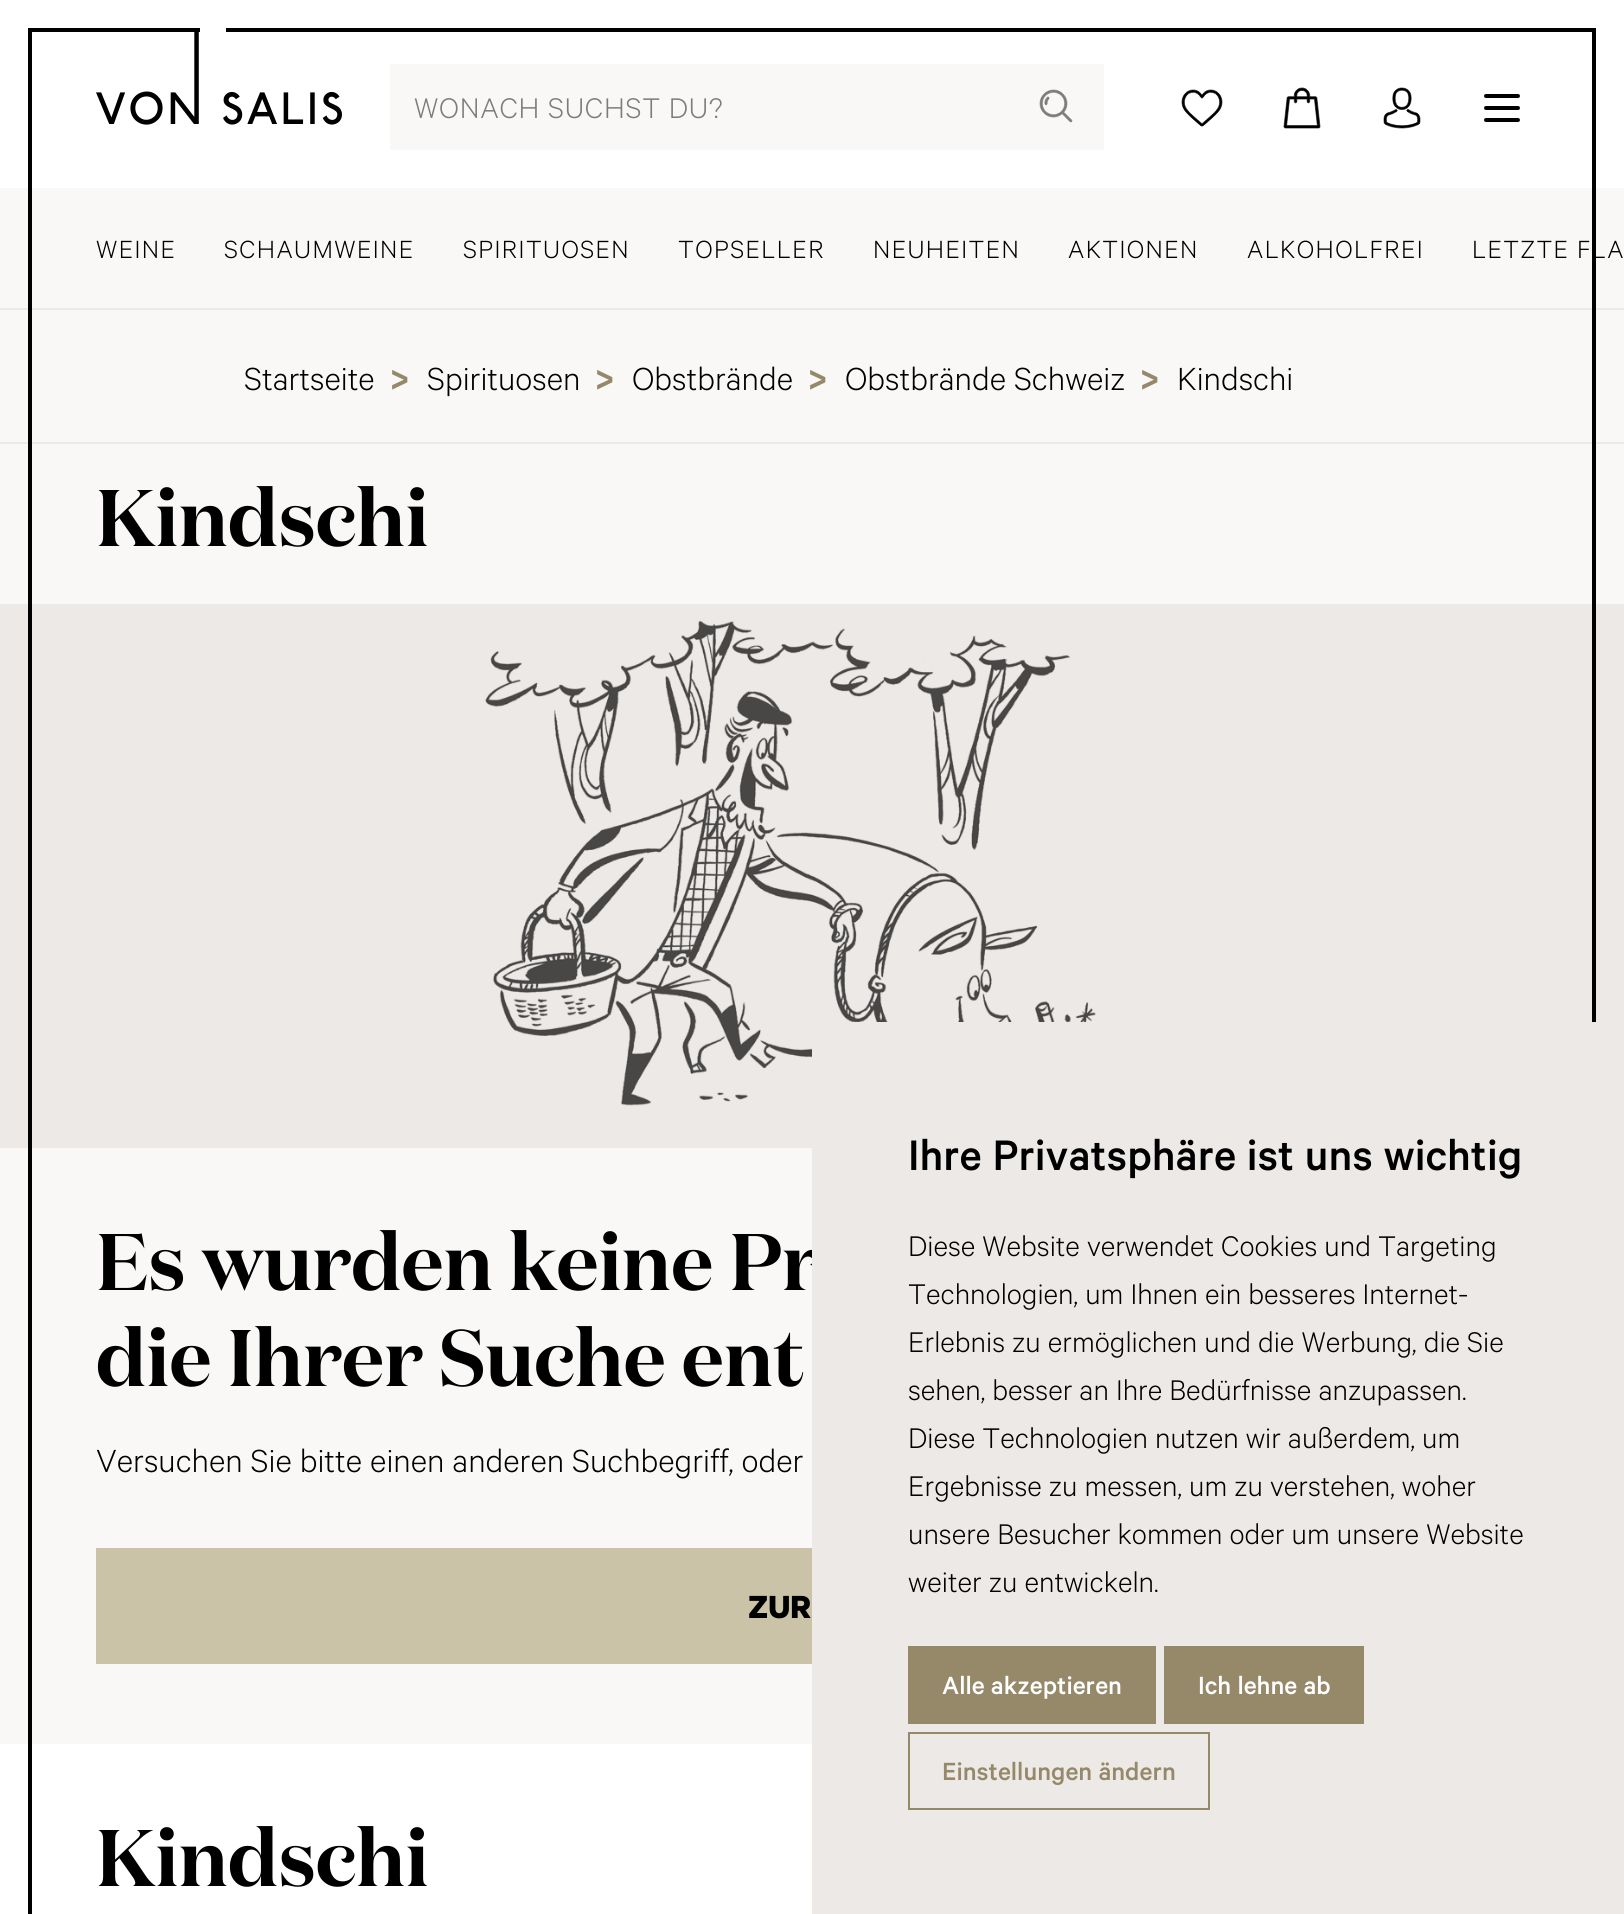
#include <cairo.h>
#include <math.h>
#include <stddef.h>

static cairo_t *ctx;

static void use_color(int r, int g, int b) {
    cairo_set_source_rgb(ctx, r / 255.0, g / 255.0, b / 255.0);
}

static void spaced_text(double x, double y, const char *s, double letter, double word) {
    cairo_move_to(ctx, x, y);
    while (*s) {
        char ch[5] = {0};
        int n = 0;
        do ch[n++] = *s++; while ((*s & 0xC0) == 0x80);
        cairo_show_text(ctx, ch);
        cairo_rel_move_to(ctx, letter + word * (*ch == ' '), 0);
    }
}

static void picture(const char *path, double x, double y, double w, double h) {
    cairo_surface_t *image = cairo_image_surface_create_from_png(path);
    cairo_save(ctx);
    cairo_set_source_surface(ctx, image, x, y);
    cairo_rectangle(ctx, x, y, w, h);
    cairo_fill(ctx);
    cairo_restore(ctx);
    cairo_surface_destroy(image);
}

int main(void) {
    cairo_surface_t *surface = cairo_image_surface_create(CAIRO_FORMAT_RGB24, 1624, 1914);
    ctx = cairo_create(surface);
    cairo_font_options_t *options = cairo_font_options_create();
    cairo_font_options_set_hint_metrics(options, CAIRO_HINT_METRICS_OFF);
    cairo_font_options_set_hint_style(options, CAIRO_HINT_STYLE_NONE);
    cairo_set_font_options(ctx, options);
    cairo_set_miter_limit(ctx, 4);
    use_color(255, 255, 255);
    cairo_paint(ctx);
    cairo_rectangle(ctx, 30, 30, 1564, 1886);
    use_color(0, 0, 0);
    cairo_set_line_width(ctx, 4);
    cairo_stroke(ctx);
    use_color(249, 248, 247);
    cairo_rectangle(ctx, 0, 188, 1624, 120);
    cairo_fill(ctx);
    use_color(236, 233, 231);
    cairo_rectangle(ctx, 0, 308, 1624, 2);
    cairo_fill(ctx);
    use_color(249, 248, 247);
    cairo_rectangle(ctx, 0, 310, 1624, 132);
    cairo_fill(ctx);
    use_color(236, 233, 231);
    cairo_rectangle(ctx, 0, 442, 1624, 2);
    cairo_fill(ctx);
    use_color(249, 248, 247);
    cairo_rectangle(ctx, 0, 444, 1624, 160);
    cairo_fill(ctx);
    cairo_rectangle(ctx, 0, 1148, 812, 596);
    cairo_fill(ctx);
    use_color(236, 233, 231);
    cairo_rectangle(ctx, 0, 604, 1624, 544);
    cairo_fill(ctx);
    use_color(0, 0, 0);
    cairo_rectangle(ctx, 28, 188, 4, 1556);
    cairo_fill(ctx);
    use_color(255, 255, 255);
    cairo_rectangle(ctx, 200, 28, 26, 4);
    cairo_fill(ctx);
    picture("img1.png", 96, 32, 246, 93);
    use_color(249, 248, 247);
    cairo_rectangle(ctx, 390, 64, 714, 86);
    cairo_fill(ctx);
    cairo_select_font_face(ctx, "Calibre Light", CAIRO_FONT_SLANT_NORMAL, CAIRO_FONT_WEIGHT_NORMAL);
    cairo_set_font_size(ctx, 32);
    use_color(125, 124, 124);
    spaced_text(414, 118, "WONACH SUCHST DU?", 0.75, 0);
    picture("img2.png", 1039, 89, 34, 34);
    picture("img3.png", 1181, 89, 42, 38);
    picture("img4.png", 1283, 87, 38, 42);
    picture("img5.png", 1383, 87, 38, 42);
    picture("img6.png", 1484, 94, 36, 28);
    cairo_set_font_size(ctx, 28);
    use_color(0, 0, 0);
    spaced_text(96, 258, "WEINE", 1.4, 0);
    spaced_text(224, 258, "SCHAUMWEINE", 1.4, 0);
    spaced_text(463, 258, "SPIRITUOSEN", 1.4, 0);
    spaced_text(678, 258, "TOPSELLER", 1.4, 0);
    spaced_text(873, 258, "NEUHEITEN", 1.4, 0);
    spaced_text(1068, 258, "AKTIONEN", 1.4, 0);
    spaced_text(1247, 258, "ALKOHOLFREI", 1.4, 0);
    spaced_text(1472, 258, "LETZTE FLA", 1.4, 0);
    cairo_set_font_size(ctx, 36);
    cairo_move_to(ctx, 244, 390);
    cairo_show_text(ctx, "Startseite");
    cairo_select_font_face(ctx, "Calibre Medium", CAIRO_FONT_SLANT_NORMAL, CAIRO_FONT_WEIGHT_NORMAL);
    cairo_set_font_size(ctx, 48);
    use_color(150, 137, 106);
    cairo_move_to(ctx, 389, 394);
    cairo_show_text(ctx, ">");
    cairo_select_font_face(ctx, "Calibre Light", CAIRO_FONT_SLANT_NORMAL, CAIRO_FONT_WEIGHT_NORMAL);
    cairo_set_font_size(ctx, 36);
    use_color(0, 0, 0);
    cairo_move_to(ctx, 427, 390);
    cairo_show_text(ctx, "Spirituosen");
    cairo_select_font_face(ctx, "Calibre Medium", CAIRO_FONT_SLANT_NORMAL, CAIRO_FONT_WEIGHT_NORMAL);
    cairo_set_font_size(ctx, 48);
    use_color(150, 137, 106);
    cairo_move_to(ctx, 594, 394);
    cairo_show_text(ctx, ">");
    cairo_select_font_face(ctx, "Calibre Light", CAIRO_FONT_SLANT_NORMAL, CAIRO_FONT_WEIGHT_NORMAL);
    cairo_set_font_size(ctx, 36);
    use_color(0, 0, 0);
    cairo_move_to(ctx, 632, 390);
    cairo_show_text(ctx, "Obstbrände");
    cairo_select_font_face(ctx, "Calibre Medium", CAIRO_FONT_SLANT_NORMAL, CAIRO_FONT_WEIGHT_NORMAL);
    cairo_set_font_size(ctx, 48);
    use_color(150, 137, 106);
    cairo_move_to(ctx, 807, 394);
    cairo_show_text(ctx, ">");
    cairo_select_font_face(ctx, "Calibre Light", CAIRO_FONT_SLANT_NORMAL, CAIRO_FONT_WEIGHT_NORMAL);
    cairo_set_font_size(ctx, 36);
    use_color(0, 0, 0);
    cairo_move_to(ctx, 845, 390);
    cairo_show_text(ctx, "Obstbrände Schweiz");
    cairo_select_font_face(ctx, "Calibre Medium", CAIRO_FONT_SLANT_NORMAL, CAIRO_FONT_WEIGHT_NORMAL);
    cairo_set_font_size(ctx, 48);
    use_color(150, 137, 106);
    cairo_move_to(ctx, 1139, 394);
    cairo_show_text(ctx, ">");
    cairo_select_font_face(ctx, "Calibre Light", CAIRO_FONT_SLANT_NORMAL, CAIRO_FONT_WEIGHT_NORMAL);
    cairo_set_font_size(ctx, 36);
    use_color(0, 0, 0);
    cairo_move_to(ctx, 1177, 390);
    cairo_show_text(ctx, "Kindschi");
    cairo_select_font_face(ctx, "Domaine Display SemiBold", CAIRO_FONT_SLANT_NORMAL, CAIRO_FONT_WEIGHT_NORMAL);
    cairo_set_font_size(ctx, 80);
    cairo_move_to(ctx, 96, 546);
    cairo_show_text(ctx, "Kindschi");
    picture("img7.png", 485, 620, 665, 511);
    cairo_move_to(ctx, 96, 1290);
    cairo_show_text(ctx, "Es wurden keine Pr");
    cairo_move_to(ctx, 96, 1386);
    cairo_show_text(ctx, "die Ihrer Suche ent");
    cairo_select_font_face(ctx, "Calibre Light", CAIRO_FONT_SLANT_NORMAL, CAIRO_FONT_WEIGHT_NORMAL);
    cairo_set_font_size(ctx, 36);
    cairo_move_to(ctx, 96, 1472);
    cairo_show_text(ctx, "Versuchen Sie bitte einen anderen Suchbegriff, oder");
    use_color(203, 195, 167);
    cairo_rectangle(ctx, 96, 1548, 716, 116);
    cairo_fill(ctx);
    cairo_select_font_face(ctx, "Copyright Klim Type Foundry", CAIRO_FONT_SLANT_NORMAL, CAIRO_FONT_WEIGHT_BOLD);
    use_color(0, 0, 0);
    cairo_move_to(ctx, 748, 1618);
    cairo_show_text(ctx, "ZUR");
    cairo_select_font_face(ctx, "Domaine Display SemiBold", CAIRO_FONT_SLANT_NORMAL, CAIRO_FONT_WEIGHT_NORMAL);
    cairo_set_font_size(ctx, 80);
    cairo_move_to(ctx, 96, 1886);
    cairo_show_text(ctx, "Kindschi");
    cairo_rectangle(ctx, 1592, 188, 4, 834);
    cairo_fill(ctx);
    use_color(236, 233, 231);
    cairo_rectangle(ctx, 812, 1022, 812, 892);
    cairo_fill(ctx);
    cairo_select_font_face(ctx, "Calibre Medium", CAIRO_FONT_SLANT_NORMAL, CAIRO_FONT_WEIGHT_NORMAL);
    cairo_set_font_size(ctx, 48);
    use_color(0, 0, 0);
    cairo_move_to(ctx, 908, 1170);
    cairo_show_text(ctx, "Ihre Privatsphäre ist uns wichtig");
    cairo_select_font_face(ctx, "Calibre Light", CAIRO_FONT_SLANT_NORMAL, CAIRO_FONT_WEIGHT_NORMAL);
    cairo_set_font_size(ctx, 32);
    cairo_move_to(ctx, 908, 1256);
    cairo_show_text(ctx, "Diese Website verwendet Cookies und Targeting");
    cairo_move_to(ctx, 908, 1304);
    cairo_show_text(ctx, "Technologien, um Ihnen ein besseres Internet-");
    cairo_move_to(ctx, 908, 1352);
    cairo_show_text(ctx, "Erlebnis zu ermöglichen und die Werbung, die Sie");
    cairo_move_to(ctx, 908, 1400);
    cairo_show_text(ctx, "sehen, besser an Ihre Bedürfnisse anzupassen.");
    cairo_move_to(ctx, 908, 1448);
    cairo_show_text(ctx, "Diese Technologien nutzen wir außerdem, um");
    cairo_move_to(ctx, 908, 1496);
    cairo_show_text(ctx, "Ergebnisse zu messen, um zu verstehen, woher");
    cairo_move_to(ctx, 908, 1544);
    cairo_show_text(ctx, "unsere Besucher kommen oder um unsere Website");
    cairo_move_to(ctx, 908, 1592);
    cairo_show_text(ctx, "weiter zu entwickeln.");
    use_color(150, 137, 106);
    cairo_rectangle(ctx, 908, 1646, 248, 78);
    cairo_fill(ctx);
    cairo_select_font_face(ctx, "Calibre Medium", CAIRO_FONT_SLANT_NORMAL, CAIRO_FONT_WEIGHT_NORMAL);
    cairo_set_font_size(ctx, 28);
    use_color(255, 255, 255);
    cairo_move_to(ctx, 942, 1694);
    cairo_show_text(ctx, "Alle akzeptieren");
    use_color(150, 137, 106);
    cairo_rectangle(ctx, 1164, 1646, 200, 78);
    cairo_fill(ctx);
    use_color(255, 255, 255);
    cairo_move_to(ctx, 1198, 1694);
    cairo_show_text(ctx, "Ich lehne ab");
    cairo_rectangle(ctx, 909, 1733, 300, 76);
    use_color(150, 137, 106);
    cairo_set_line_width(ctx, 2);
    cairo_stroke(ctx);
    cairo_move_to(ctx, 942, 1780);
    cairo_show_text(ctx, "Einstellungen ändern");
    cairo_surface_write_to_png(surface, "result.png");
    cairo_font_options_destroy(options);
    cairo_destroy(ctx);
    cairo_surface_destroy(surface);
    return 0;
}
